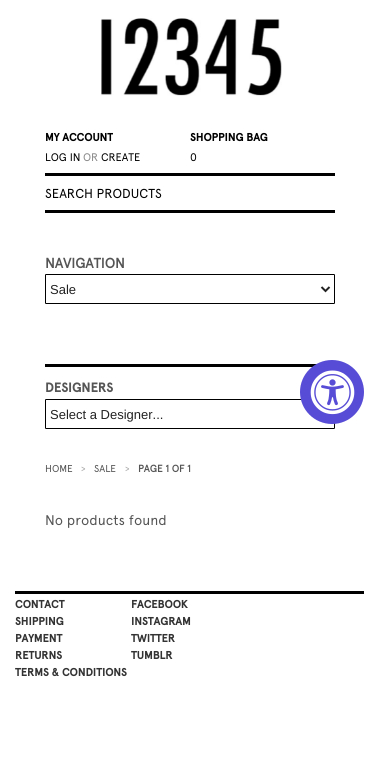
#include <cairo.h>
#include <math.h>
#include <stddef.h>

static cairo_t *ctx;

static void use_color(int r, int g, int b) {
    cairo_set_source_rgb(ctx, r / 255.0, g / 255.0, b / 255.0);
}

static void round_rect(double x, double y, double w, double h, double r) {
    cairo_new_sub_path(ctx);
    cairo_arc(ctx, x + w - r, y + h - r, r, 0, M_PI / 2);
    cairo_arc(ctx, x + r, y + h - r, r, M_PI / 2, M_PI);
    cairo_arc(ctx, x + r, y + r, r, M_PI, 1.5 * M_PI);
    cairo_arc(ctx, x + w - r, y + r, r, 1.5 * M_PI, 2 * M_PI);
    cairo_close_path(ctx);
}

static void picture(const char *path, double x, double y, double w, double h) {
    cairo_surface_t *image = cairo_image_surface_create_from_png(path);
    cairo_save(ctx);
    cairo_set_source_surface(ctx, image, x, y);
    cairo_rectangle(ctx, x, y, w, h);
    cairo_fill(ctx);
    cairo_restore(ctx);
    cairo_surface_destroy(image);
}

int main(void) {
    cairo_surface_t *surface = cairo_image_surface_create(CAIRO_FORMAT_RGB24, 379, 784);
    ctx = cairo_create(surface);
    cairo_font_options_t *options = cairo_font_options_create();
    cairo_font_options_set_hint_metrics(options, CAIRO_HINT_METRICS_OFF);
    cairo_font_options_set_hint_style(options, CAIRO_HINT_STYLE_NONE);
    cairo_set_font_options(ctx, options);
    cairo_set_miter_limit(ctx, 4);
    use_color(255, 255, 255);
    cairo_paint(ctx);
    picture("img1.png", 101, 18, 181, 78);
    cairo_select_font_face(ctx, "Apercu", CAIRO_FONT_SLANT_NORMAL, CAIRO_FONT_WEIGHT_BOLD);
    cairo_set_font_size(ctx, 11);
    use_color(0, 0, 0);
    cairo_move_to(ctx, 45, 141);
    cairo_show_text(ctx, "MY ACCOUNT");
    cairo_select_font_face(ctx, "Apercu", CAIRO_FONT_SLANT_NORMAL, CAIRO_FONT_WEIGHT_NORMAL);
    cairo_move_to(ctx, 45, 161);
    cairo_show_text(ctx, "LOG IN");
    use_color(136, 136, 136);
    cairo_move_to(ctx, 83, 161);
    cairo_show_text(ctx, "OR");
    use_color(0, 0, 0);
    cairo_move_to(ctx, 101, 161);
    cairo_show_text(ctx, "CREATE");
    cairo_rectangle(ctx, 45, 173, 290, 3);
    cairo_fill(ctx);
    cairo_select_font_face(ctx, "Apercu", CAIRO_FONT_SLANT_NORMAL, CAIRO_FONT_WEIGHT_BOLD);
    cairo_move_to(ctx, 190, 141);
    cairo_show_text(ctx, "SHOPPING BAG");
    cairo_select_font_face(ctx, "Apercu", CAIRO_FONT_SLANT_NORMAL, CAIRO_FONT_WEIGHT_NORMAL);
    cairo_move_to(ctx, 190, 161);
    cairo_show_text(ctx, "0");
    cairo_rectangle(ctx, 45, 210, 290, 3);
    cairo_fill(ctx);
    cairo_set_font_size(ctx, 13);
    cairo_move_to(ctx, 45, 198);
    cairo_show_text(ctx, "SEARCH PRODUCTS");
    cairo_select_font_face(ctx, "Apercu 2", CAIRO_FONT_SLANT_NORMAL, CAIRO_FONT_WEIGHT_BOLD);
    cairo_set_font_size(ctx, 14);
    use_color(85, 85, 85);
    cairo_move_to(ctx, 45, 268);
    cairo_show_text(ctx, "NAVIGATION");
    round_rect(45.5, 274.5, 289, 29, 0.5);
    use_color(0, 0, 0);
    cairo_set_line_width(ctx, 1);
    cairo_stroke(ctx);
    cairo_new_path(ctx);
    cairo_move_to(ctx, 321.5, 287);
    cairo_line_to(ctx, 325.5, 291);
    cairo_line_to(ctx, 329.5, 287);
    use_color(34, 34, 34);
    cairo_set_line_width(ctx, 2);
    cairo_stroke(ctx);
    cairo_select_font_face(ctx, "Liberation Sans", CAIRO_FONT_SLANT_NORMAL, CAIRO_FONT_WEIGHT_NORMAL);
    cairo_set_font_size(ctx, 13);
    cairo_move_to(ctx, 50, 294);
    cairo_show_text(ctx, "Sale");
    use_color(0, 0, 0);
    cairo_rectangle(ctx, 45, 364, 272, 3);
    cairo_fill(ctx);
    cairo_select_font_face(ctx, "Apercu", CAIRO_FONT_SLANT_NORMAL, CAIRO_FONT_WEIGHT_BOLD);
    use_color(85, 85, 85);
    cairo_move_to(ctx, 45, 392);
    cairo_show_text(ctx, "DESIGNERS");
    round_rect(45.5, 399.5, 289, 29, 0.5);
    use_color(0, 0, 0);
    cairo_set_line_width(ctx, 1);
    cairo_stroke(ctx);
    cairo_select_font_face(ctx, "Liberation Sans", CAIRO_FONT_SLANT_NORMAL, CAIRO_FONT_WEIGHT_NORMAL);
    use_color(34, 34, 34);
    cairo_move_to(ctx, 50, 419);
    cairo_show_text(ctx, "Select a Designer...");
    cairo_select_font_face(ctx, "Apercu", CAIRO_FONT_SLANT_NORMAL, CAIRO_FONT_WEIGHT_NORMAL);
    cairo_set_font_size(ctx, 10);
    use_color(85, 85, 85);
    cairo_move_to(ctx, 45, 472);
    cairo_show_text(ctx, "HOME");
    use_color(170, 170, 170);
    cairo_move_to(ctx, 81, 472);
    cairo_show_text(ctx, ">");
    use_color(85, 85, 85);
    cairo_move_to(ctx, 94, 472);
    cairo_show_text(ctx, "SALE");
    use_color(170, 170, 170);
    cairo_move_to(ctx, 125, 472);
    cairo_show_text(ctx, ">");
    cairo_select_font_face(ctx, "Apercu 2", CAIRO_FONT_SLANT_NORMAL, CAIRO_FONT_WEIGHT_BOLD);
    use_color(85, 85, 85);
    cairo_move_to(ctx, 138, 472);
    cairo_show_text(ctx, "PAGE 1 OF 1");
    cairo_select_font_face(ctx, "Apercu", CAIRO_FONT_SLANT_NORMAL, CAIRO_FONT_WEIGHT_NORMAL);
    cairo_set_font_size(ctx, 14);
    cairo_move_to(ctx, 45, 525);
    cairo_show_text(ctx, "No products found");
    use_color(87, 76, 213);
    cairo_new_path(ctx);
    cairo_arc(ctx, 332, 392, 32, 0, 2 * M_PI);
    cairo_fill(ctx);
    picture("img2.png", 310, 370, 45, 45);
    use_color(0, 0, 0);
    cairo_rectangle(ctx, 15, 591, 349, 3);
    cairo_fill(ctx);
    cairo_select_font_face(ctx, "Apercu", CAIRO_FONT_SLANT_NORMAL, CAIRO_FONT_WEIGHT_BOLD);
    cairo_set_font_size(ctx, 11);
    use_color(51, 51, 51);
    cairo_move_to(ctx, 15, 608);
    cairo_show_text(ctx, "CONTACT");
    cairo_move_to(ctx, 15, 625);
    cairo_show_text(ctx, "SHIPPING");
    cairo_move_to(ctx, 15, 642);
    cairo_show_text(ctx, "PAYMENT");
    cairo_move_to(ctx, 15, 659);
    cairo_show_text(ctx, "RETURNS");
    cairo_move_to(ctx, 15, 676);
    cairo_show_text(ctx, "TERMS & CONDITIONS");
    cairo_move_to(ctx, 131, 608);
    cairo_show_text(ctx, "FACEBOOK");
    cairo_move_to(ctx, 131, 625);
    cairo_show_text(ctx, "INSTAGRAM");
    cairo_move_to(ctx, 131, 642);
    cairo_show_text(ctx, "TWITTER");
    cairo_move_to(ctx, 131, 659);
    cairo_show_text(ctx, "TUMBLR");
    cairo_surface_write_to_png(surface, "result.png");
    cairo_font_options_destroy(options);
    cairo_destroy(ctx);
    cairo_surface_destroy(surface);
    return 0;
}
